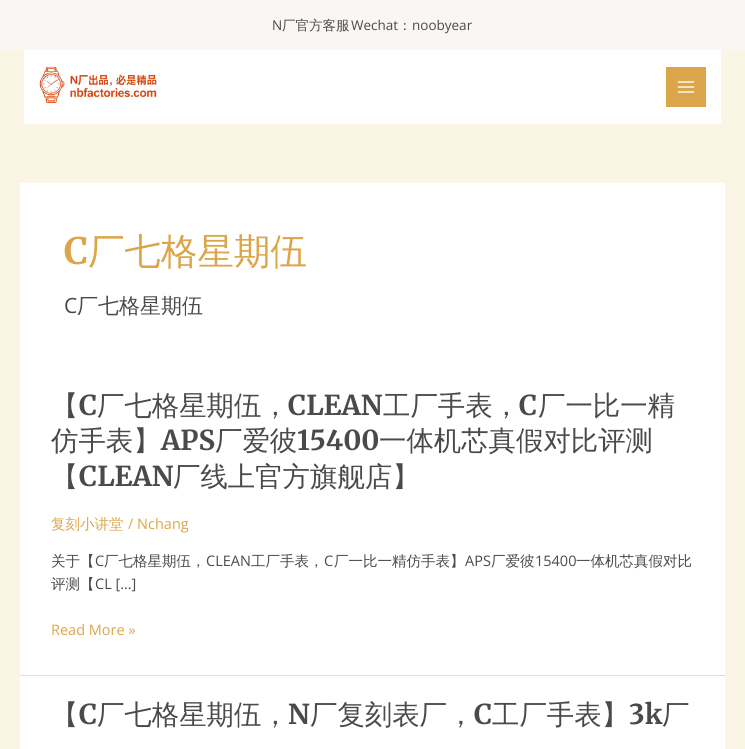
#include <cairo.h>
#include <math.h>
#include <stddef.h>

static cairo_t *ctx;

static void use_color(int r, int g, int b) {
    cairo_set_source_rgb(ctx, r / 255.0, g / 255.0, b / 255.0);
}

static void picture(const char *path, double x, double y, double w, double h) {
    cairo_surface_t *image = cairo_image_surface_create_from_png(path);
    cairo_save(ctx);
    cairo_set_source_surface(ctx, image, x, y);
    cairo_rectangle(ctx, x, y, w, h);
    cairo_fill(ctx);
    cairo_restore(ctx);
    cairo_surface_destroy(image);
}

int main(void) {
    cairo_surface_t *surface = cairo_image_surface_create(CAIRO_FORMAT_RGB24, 745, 749);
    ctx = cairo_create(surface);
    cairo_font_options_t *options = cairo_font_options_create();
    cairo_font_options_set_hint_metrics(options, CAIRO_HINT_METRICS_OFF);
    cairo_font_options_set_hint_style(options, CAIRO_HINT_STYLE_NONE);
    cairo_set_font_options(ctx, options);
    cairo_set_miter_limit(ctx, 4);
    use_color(250, 245, 229);
    cairo_paint(ctx);
    use_color(249, 247, 244);
    cairo_rectangle(ctx, 0, 0, 745, 50);
    cairo_fill(ctx);
    cairo_select_font_face(ctx, "Open Sans", CAIRO_FONT_SLANT_NORMAL, CAIRO_FONT_WEIGHT_NORMAL);
    cairo_set_font_size(ctx, 13.5);
    use_color(74, 74, 74);
    cairo_move_to(ctx, 272, 30);
    cairo_show_text(ctx, "N");
    cairo_select_font_face(ctx, "WenQuanYi Zen Hei Medium", CAIRO_FONT_SLANT_NORMAL, CAIRO_FONT_WEIGHT_NORMAL);
    cairo_move_to(ctx, 282, 30);
    cairo_show_text(ctx, "厂官方客服");
    cairo_select_font_face(ctx, "Open Sans", CAIRO_FONT_SLANT_NORMAL, CAIRO_FONT_WEIGHT_NORMAL);
    cairo_move_to(ctx, 351, 30);
    cairo_show_text(ctx, "Wechat");
    cairo_select_font_face(ctx, "WenQuanYi Zen Hei Medium", CAIRO_FONT_SLANT_NORMAL, CAIRO_FONT_WEIGHT_NORMAL);
    cairo_move_to(ctx, 398, 30);
    cairo_show_text(ctx, "：");
    cairo_select_font_face(ctx, "Open Sans", CAIRO_FONT_SLANT_NORMAL, CAIRO_FONT_WEIGHT_NORMAL);
    cairo_move_to(ctx, 412, 30);
    cairo_show_text(ctx, "noobyear");
    use_color(255, 255, 255);
    cairo_rectangle(ctx, 24, 50, 697, 74);
    cairo_fill(ctx);
    picture("img1.png", 39, 66, 118, 38);
    use_color(220, 165, 74);
    cairo_rectangle(ctx, 666, 67, 40, 40);
    cairo_fill(ctx);
    picture("img2.png", 677, 81, 18, 12);
    use_color(255, 255, 255);
    cairo_rectangle(ctx, 20, 183, 705, 492);
    cairo_fill(ctx);
    cairo_select_font_face(ctx, "Merriweather Light", CAIRO_FONT_SLANT_NORMAL, CAIRO_FONT_WEIGHT_NORMAL);
    cairo_set_font_size(ctx, 36.5);
    use_color(220, 165, 74);
    cairo_move_to(ctx, 64, 264);
    cairo_show_text(ctx, "C");
    cairo_select_font_face(ctx, "WenQuanYi Zen Hei Medium", CAIRO_FONT_SLANT_NORMAL, CAIRO_FONT_WEIGHT_NORMAL);
    cairo_move_to(ctx, 88, 264);
    cairo_show_text(ctx, "厂七格星期伍");
    cairo_select_font_face(ctx, "Open Sans", CAIRO_FONT_SLANT_NORMAL, CAIRO_FONT_WEIGHT_NORMAL);
    cairo_set_font_size(ctx, 21);
    use_color(74, 74, 74);
    cairo_move_to(ctx, 64, 313);
    cairo_show_text(ctx, "C");
    cairo_select_font_face(ctx, "WenQuanYi Zen Hei Medium", CAIRO_FONT_SLANT_NORMAL, CAIRO_FONT_WEIGHT_NORMAL);
    cairo_move_to(ctx, 77, 313);
    cairo_show_text(ctx, "厂七格星期伍");
    use_color(221, 221, 221);
    cairo_rectangle(ctx, 20, 675, 705, 1);
    cairo_fill(ctx);
    cairo_set_font_size(ctx, 27.4);
    use_color(74, 74, 74);
    cairo_move_to(ctx, 51, 415);
    cairo_show_text(ctx, "【");
    cairo_select_font_face(ctx, "Merriweather Light", CAIRO_FONT_SLANT_NORMAL, CAIRO_FONT_WEIGHT_NORMAL);
    cairo_move_to(ctx, 79, 415);
    cairo_show_text(ctx, "C");
    cairo_select_font_face(ctx, "WenQuanYi Zen Hei Medium", CAIRO_FONT_SLANT_NORMAL, CAIRO_FONT_WEIGHT_NORMAL);
    cairo_move_to(ctx, 97, 415);
    cairo_show_text(ctx, "厂七格星期伍，");
    cairo_select_font_face(ctx, "Merriweather Light", CAIRO_FONT_SLANT_NORMAL, CAIRO_FONT_WEIGHT_NORMAL);
    cairo_move_to(ctx, 288, 415);
    cairo_show_text(ctx, "CLEAN");
    cairo_select_font_face(ctx, "WenQuanYi Zen Hei Medium", CAIRO_FONT_SLANT_NORMAL, CAIRO_FONT_WEIGHT_NORMAL);
    cairo_move_to(ctx, 383, 415);
    cairo_show_text(ctx, "工厂手表，");
    cairo_select_font_face(ctx, "Merriweather Light", CAIRO_FONT_SLANT_NORMAL, CAIRO_FONT_WEIGHT_NORMAL);
    cairo_move_to(ctx, 519, 415);
    cairo_show_text(ctx, "C");
    cairo_select_font_face(ctx, "WenQuanYi Zen Hei Medium", CAIRO_FONT_SLANT_NORMAL, CAIRO_FONT_WEIGHT_NORMAL);
    cairo_move_to(ctx, 538, 415);
    cairo_show_text(ctx, "厂一比一精");
    cairo_move_to(ctx, 51, 450);
    cairo_show_text(ctx, "仿手表】");
    cairo_select_font_face(ctx, "Merriweather Light", CAIRO_FONT_SLANT_NORMAL, CAIRO_FONT_WEIGHT_NORMAL);
    cairo_move_to(ctx, 161, 450);
    cairo_show_text(ctx, "APS");
    cairo_select_font_face(ctx, "WenQuanYi Zen Hei Medium", CAIRO_FONT_SLANT_NORMAL, CAIRO_FONT_WEIGHT_NORMAL);
    cairo_move_to(ctx, 215, 450);
    cairo_show_text(ctx, "厂爱彼");
    cairo_select_font_face(ctx, "Merriweather Light", CAIRO_FONT_SLANT_NORMAL, CAIRO_FONT_WEIGHT_NORMAL);
    cairo_move_to(ctx, 297, 450);
    cairo_show_text(ctx, "15400");
    cairo_select_font_face(ctx, "WenQuanYi Zen Hei Medium", CAIRO_FONT_SLANT_NORMAL, CAIRO_FONT_WEIGHT_NORMAL);
    cairo_move_to(ctx, 379, 450);
    cairo_show_text(ctx, "一体机芯真假对比评测");
    cairo_move_to(ctx, 51, 486);
    cairo_show_text(ctx, "【");
    cairo_select_font_face(ctx, "Merriweather Light", CAIRO_FONT_SLANT_NORMAL, CAIRO_FONT_WEIGHT_NORMAL);
    cairo_move_to(ctx, 79, 486);
    cairo_show_text(ctx, "CLEAN");
    cairo_select_font_face(ctx, "WenQuanYi Zen Hei Medium", CAIRO_FONT_SLANT_NORMAL, CAIRO_FONT_WEIGHT_NORMAL);
    cairo_move_to(ctx, 173, 486);
    cairo_show_text(ctx, "厂线上官方旗舰店】");
    cairo_set_font_size(ctx, 14.5);
    use_color(220, 165, 74);
    cairo_move_to(ctx, 51, 529);
    cairo_show_text(ctx, "复刻小讲堂");
    cairo_select_font_face(ctx, "Open Sans", CAIRO_FONT_SLANT_NORMAL, CAIRO_FONT_WEIGHT_NORMAL);
    cairo_move_to(ctx, 128, 529);
    cairo_show_text(ctx, "/ Nchang");
    cairo_select_font_face(ctx, "WenQuanYi Zen Hei Medium", CAIRO_FONT_SLANT_NORMAL, CAIRO_FONT_WEIGHT_NORMAL);
    use_color(74, 74, 74);
    cairo_move_to(ctx, 51, 566);
    cairo_show_text(ctx, "关于【");
    cairo_select_font_face(ctx, "Open Sans", CAIRO_FONT_SLANT_NORMAL, CAIRO_FONT_WEIGHT_NORMAL);
    cairo_move_to(ctx, 95, 566);
    cairo_show_text(ctx, "C");
    cairo_select_font_face(ctx, "WenQuanYi Zen Hei Medium", CAIRO_FONT_SLANT_NORMAL, CAIRO_FONT_WEIGHT_NORMAL);
    cairo_move_to(ctx, 104, 566);
    cairo_show_text(ctx, "厂七格星期伍，");
    cairo_select_font_face(ctx, "Open Sans", CAIRO_FONT_SLANT_NORMAL, CAIRO_FONT_WEIGHT_NORMAL);
    cairo_move_to(ctx, 206, 566);
    cairo_show_text(ctx, "CLEAN");
    cairo_select_font_face(ctx, "WenQuanYi Zen Hei Medium", CAIRO_FONT_SLANT_NORMAL, CAIRO_FONT_WEIGHT_NORMAL);
    cairo_move_to(ctx, 251, 566);
    cairo_show_text(ctx, "工厂手表，");
    cairo_select_font_face(ctx, "Open Sans", CAIRO_FONT_SLANT_NORMAL, CAIRO_FONT_WEIGHT_NORMAL);
    cairo_move_to(ctx, 324, 566);
    cairo_show_text(ctx, "C");
    cairo_select_font_face(ctx, "WenQuanYi Zen Hei Medium", CAIRO_FONT_SLANT_NORMAL, CAIRO_FONT_WEIGHT_NORMAL);
    cairo_move_to(ctx, 334, 566);
    cairo_show_text(ctx, "厂一比一精仿手表】");
    cairo_select_font_face(ctx, "Open Sans", CAIRO_FONT_SLANT_NORMAL, CAIRO_FONT_WEIGHT_NORMAL);
    cairo_move_to(ctx, 465, 566);
    cairo_show_text(ctx, "APS");
    cairo_select_font_face(ctx, "WenQuanYi Zen Hei Medium", CAIRO_FONT_SLANT_NORMAL, CAIRO_FONT_WEIGHT_NORMAL);
    cairo_move_to(ctx, 491, 566);
    cairo_show_text(ctx, "厂爱彼");
    cairo_select_font_face(ctx, "Open Sans", CAIRO_FONT_SLANT_NORMAL, CAIRO_FONT_WEIGHT_NORMAL);
    cairo_move_to(ctx, 535, 566);
    cairo_show_text(ctx, "15400");
    cairo_select_font_face(ctx, "WenQuanYi Zen Hei Medium", CAIRO_FONT_SLANT_NORMAL, CAIRO_FONT_WEIGHT_NORMAL);
    cairo_move_to(ctx, 576, 566);
    cairo_show_text(ctx, "一体机芯真假对比");
    cairo_move_to(ctx, 51, 589);
    cairo_show_text(ctx, "评测【");
    cairo_select_font_face(ctx, "Open Sans", CAIRO_FONT_SLANT_NORMAL, CAIRO_FONT_WEIGHT_NORMAL);
    cairo_move_to(ctx, 95, 589);
    cairo_show_text(ctx, "CL […]");
    use_color(220, 165, 74);
    cairo_move_to(ctx, 51, 635);
    cairo_show_text(ctx, "Read More »");
    use_color(255, 255, 255);
    cairo_rectangle(ctx, 20, 676, 705, 73);
    cairo_fill(ctx);
    cairo_select_font_face(ctx, "WenQuanYi Zen Hei Medium", CAIRO_FONT_SLANT_NORMAL, CAIRO_FONT_WEIGHT_NORMAL);
    cairo_set_font_size(ctx, 27.4);
    use_color(74, 74, 74);
    cairo_move_to(ctx, 51, 724);
    cairo_show_text(ctx, "【");
    cairo_select_font_face(ctx, "Merriweather Light", CAIRO_FONT_SLANT_NORMAL, CAIRO_FONT_WEIGHT_NORMAL);
    cairo_move_to(ctx, 79, 724);
    cairo_show_text(ctx, "C");
    cairo_select_font_face(ctx, "WenQuanYi Zen Hei Medium", CAIRO_FONT_SLANT_NORMAL, CAIRO_FONT_WEIGHT_NORMAL);
    cairo_move_to(ctx, 97, 724);
    cairo_show_text(ctx, "厂七格星期伍，");
    cairo_select_font_face(ctx, "Merriweather Light", CAIRO_FONT_SLANT_NORMAL, CAIRO_FONT_WEIGHT_NORMAL);
    cairo_move_to(ctx, 288, 724);
    cairo_show_text(ctx, "N");
    cairo_select_font_face(ctx, "WenQuanYi Zen Hei Medium", CAIRO_FONT_SLANT_NORMAL, CAIRO_FONT_WEIGHT_NORMAL);
    cairo_move_to(ctx, 310, 724);
    cairo_show_text(ctx, "厂复刻表厂，");
    cairo_select_font_face(ctx, "Merriweather Light", CAIRO_FONT_SLANT_NORMAL, CAIRO_FONT_WEIGHT_NORMAL);
    cairo_move_to(ctx, 474, 724);
    cairo_show_text(ctx, "C");
    cairo_select_font_face(ctx, "WenQuanYi Zen Hei Medium", CAIRO_FONT_SLANT_NORMAL, CAIRO_FONT_WEIGHT_NORMAL);
    cairo_move_to(ctx, 492, 724);
    cairo_show_text(ctx, "工厂手表】");
    cairo_select_font_face(ctx, "Merriweather Light", CAIRO_FONT_SLANT_NORMAL, CAIRO_FONT_WEIGHT_NORMAL);
    cairo_move_to(ctx, 629, 724);
    cairo_show_text(ctx, "3k");
    cairo_select_font_face(ctx, "WenQuanYi Zen Hei Medium", CAIRO_FONT_SLANT_NORMAL, CAIRO_FONT_WEIGHT_NORMAL);
    cairo_move_to(ctx, 662, 724);
    cairo_show_text(ctx, "厂");
    cairo_surface_write_to_png(surface, "result.png");
    cairo_font_options_destroy(options);
    cairo_destroy(ctx);
    cairo_surface_destroy(surface);
    return 0;
}
